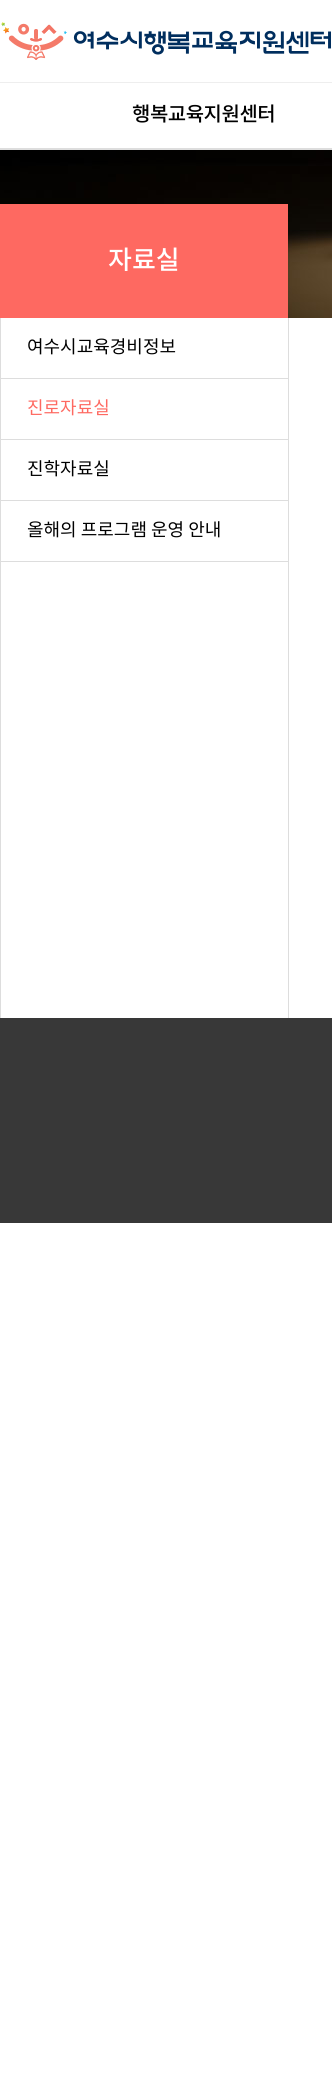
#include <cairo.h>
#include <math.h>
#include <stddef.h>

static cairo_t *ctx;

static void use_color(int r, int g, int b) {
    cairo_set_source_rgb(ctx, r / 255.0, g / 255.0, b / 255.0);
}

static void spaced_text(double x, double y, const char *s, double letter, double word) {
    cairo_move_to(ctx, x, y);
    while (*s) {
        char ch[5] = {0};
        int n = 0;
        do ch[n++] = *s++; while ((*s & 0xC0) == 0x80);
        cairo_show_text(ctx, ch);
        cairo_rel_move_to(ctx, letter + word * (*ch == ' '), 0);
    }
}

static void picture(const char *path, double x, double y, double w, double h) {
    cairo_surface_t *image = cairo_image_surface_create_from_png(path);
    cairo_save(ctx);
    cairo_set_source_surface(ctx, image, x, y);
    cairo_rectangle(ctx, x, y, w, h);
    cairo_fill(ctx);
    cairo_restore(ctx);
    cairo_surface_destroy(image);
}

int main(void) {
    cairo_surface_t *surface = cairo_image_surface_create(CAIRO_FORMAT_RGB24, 332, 2076);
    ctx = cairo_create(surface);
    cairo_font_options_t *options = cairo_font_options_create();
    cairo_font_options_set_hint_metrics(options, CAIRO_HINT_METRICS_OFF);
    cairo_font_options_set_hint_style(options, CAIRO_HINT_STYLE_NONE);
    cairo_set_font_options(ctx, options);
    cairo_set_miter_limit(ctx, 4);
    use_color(255, 255, 255);
    cairo_paint(ctx);
    use_color(238, 238, 238);
    cairo_rectangle(ctx, 0, 82, 332, 1);
    cairo_fill(ctx);
    picture("img1.png", 1, 22, 330, 38);
    use_color(221, 221, 221);
    cairo_rectangle(ctx, 0, 148, 332, 2);
    cairo_fill(ctx);
    cairo_select_font_face(ctx, "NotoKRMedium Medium", CAIRO_FONT_SLANT_NORMAL, CAIRO_FONT_WEIGHT_NORMAL);
    cairo_set_font_size(ctx, 20);
    use_color(0, 0, 0);
    spaced_text(132, 121, "행복교육지원센터", -0.5, 0);
    picture("img2.png", 0, 150, 332, 168);
    use_color(254, 105, 97);
    cairo_rectangle(ctx, 0, 204, 288, 114);
    cairo_fill(ctx);
    cairo_set_font_size(ctx, 26);
    use_color(255, 255, 255);
    cairo_move_to(ctx, 108, 269);
    cairo_show_text(ctx, "자료실");
    use_color(221, 221, 221);
    cairo_rectangle(ctx, 0, 378, 288, 1);
    cairo_fill(ctx);
    cairo_rectangle(ctx, 0, 439, 288, 1);
    cairo_fill(ctx);
    cairo_rectangle(ctx, 0, 500, 288, 1);
    cairo_fill(ctx);
    cairo_rectangle(ctx, 0, 561, 288, 1);
    cairo_fill(ctx);
    cairo_rectangle(ctx, 0, 318, 1, 700);
    cairo_fill(ctx);
    cairo_rectangle(ctx, 288, 318, 1, 700);
    cairo_fill(ctx);
    cairo_select_font_face(ctx, "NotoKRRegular", CAIRO_FONT_SLANT_NORMAL, CAIRO_FONT_WEIGHT_NORMAL);
    cairo_set_font_size(ctx, 18);
    use_color(0, 0, 0);
    cairo_move_to(ctx, 27, 353);
    cairo_show_text(ctx, "여수시교육경비정보");
    use_color(254, 105, 97);
    cairo_move_to(ctx, 27, 414);
    cairo_show_text(ctx, "진로자료실");
    use_color(0, 0, 0);
    cairo_move_to(ctx, 27, 475);
    cairo_show_text(ctx, "진학자료실");
    cairo_move_to(ctx, 27, 536);
    cairo_show_text(ctx, "올해의 프로그램 운영 안내");
    use_color(56, 56, 56);
    cairo_rectangle(ctx, 0, 1018, 332, 205);
    cairo_fill(ctx);
    cairo_surface_write_to_png(surface, "result.png");
    cairo_font_options_destroy(options);
    cairo_destroy(ctx);
    cairo_surface_destroy(surface);
    return 0;
}
